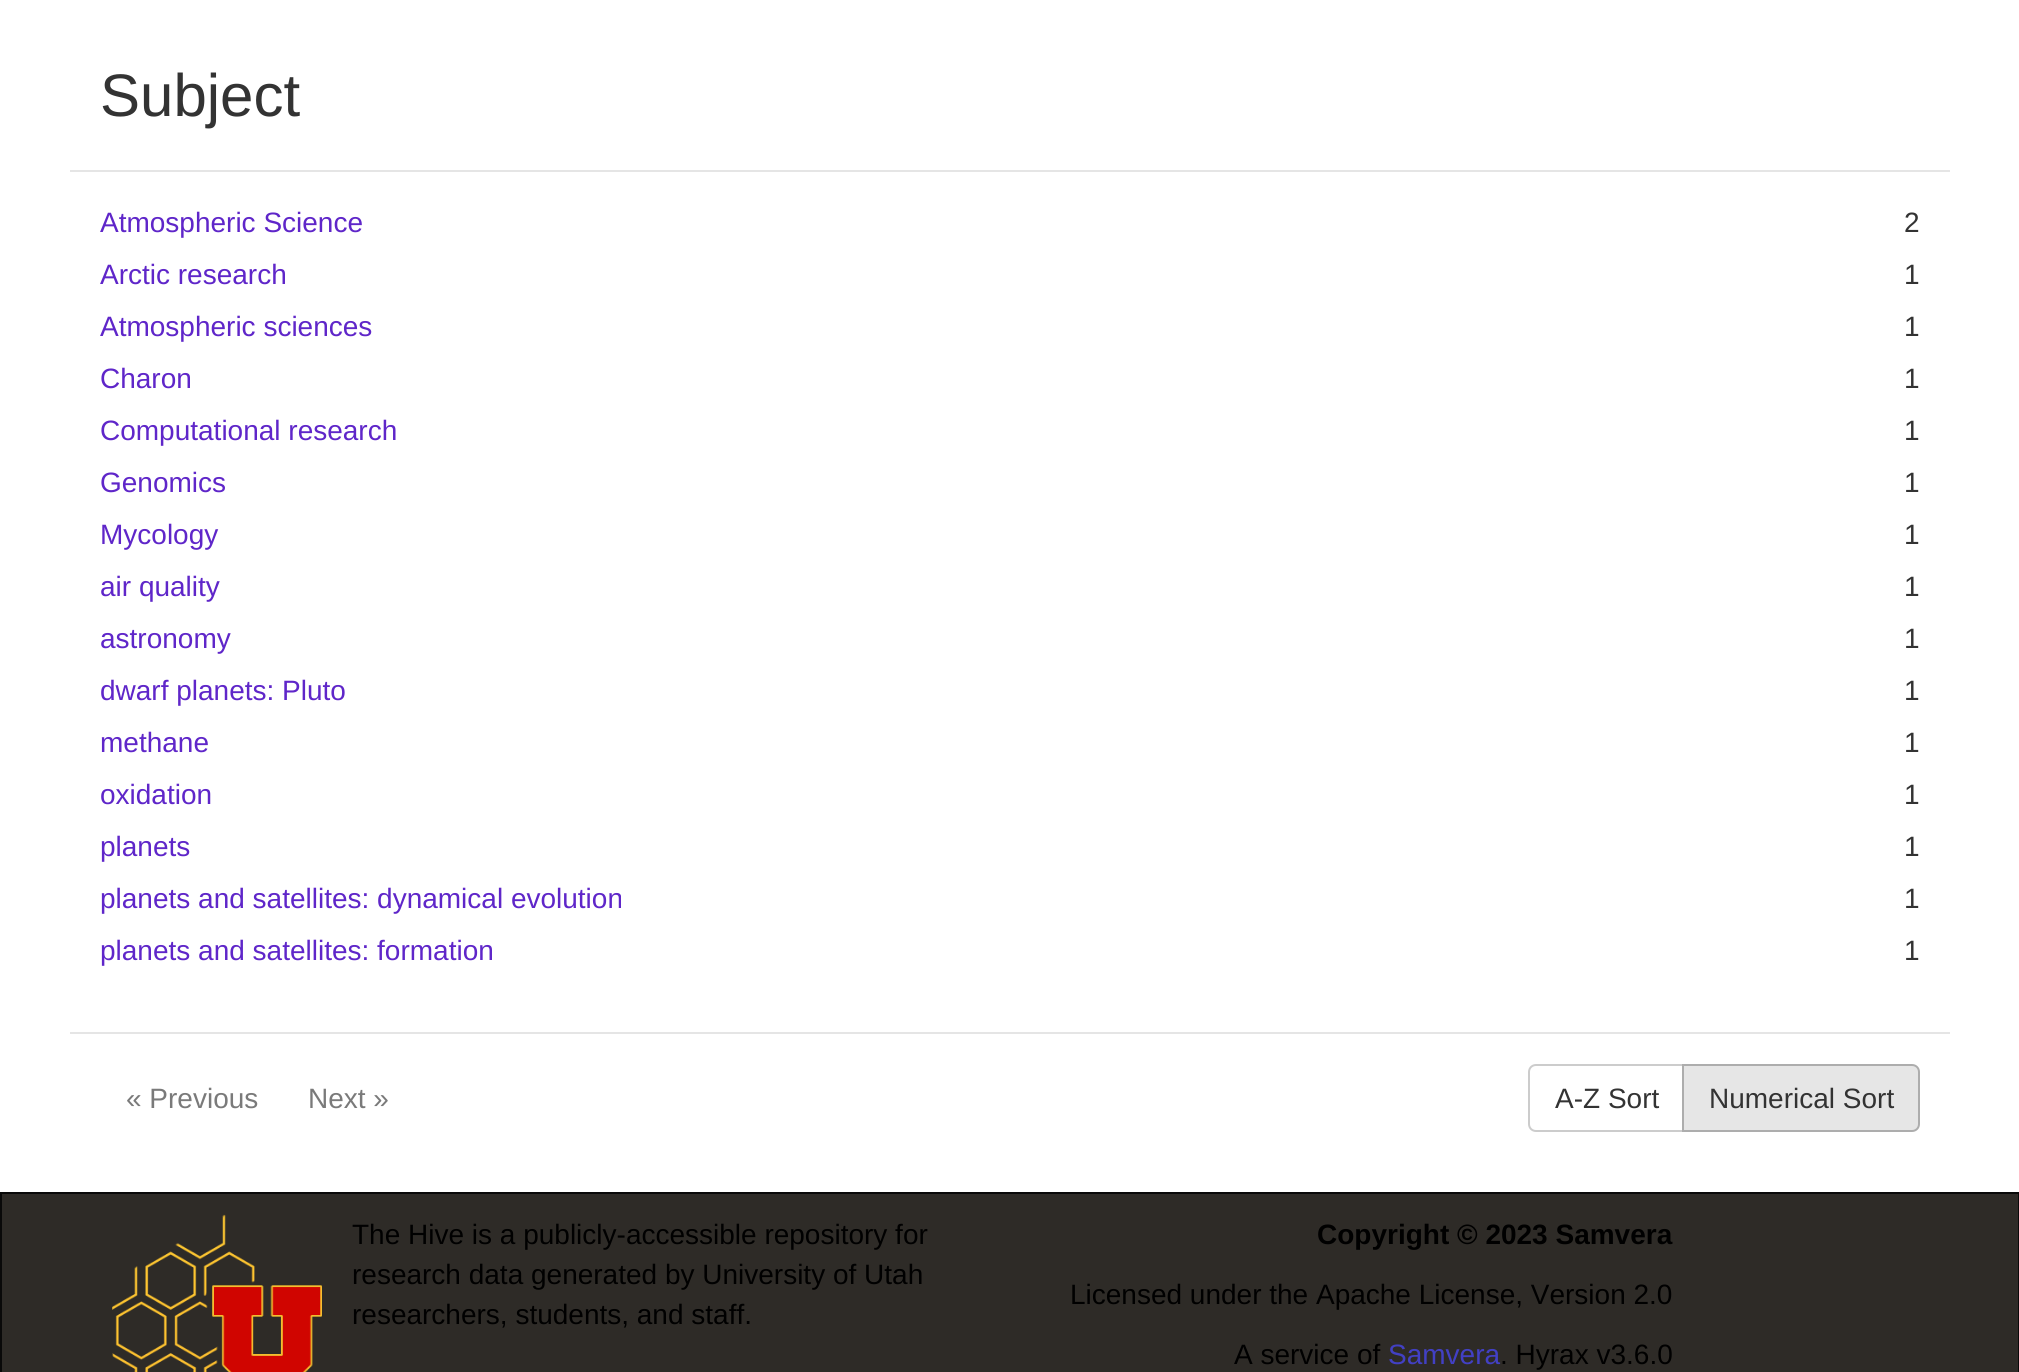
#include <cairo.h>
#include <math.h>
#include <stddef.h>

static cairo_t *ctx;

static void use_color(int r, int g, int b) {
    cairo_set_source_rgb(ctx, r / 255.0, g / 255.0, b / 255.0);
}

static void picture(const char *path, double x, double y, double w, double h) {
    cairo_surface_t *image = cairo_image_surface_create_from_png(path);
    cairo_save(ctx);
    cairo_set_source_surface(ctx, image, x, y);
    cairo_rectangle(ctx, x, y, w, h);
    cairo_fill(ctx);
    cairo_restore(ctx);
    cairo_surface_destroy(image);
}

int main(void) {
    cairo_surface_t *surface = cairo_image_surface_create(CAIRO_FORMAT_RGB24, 2019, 1372);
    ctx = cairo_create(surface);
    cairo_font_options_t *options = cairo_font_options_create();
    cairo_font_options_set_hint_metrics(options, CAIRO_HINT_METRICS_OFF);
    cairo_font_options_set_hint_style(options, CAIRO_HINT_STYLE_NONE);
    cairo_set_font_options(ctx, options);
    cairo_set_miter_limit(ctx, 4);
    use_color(255, 255, 255);
    cairo_paint(ctx);
    use_color(229, 229, 229);
    cairo_rectangle(ctx, 70, 170, 1880, 2);
    cairo_fill(ctx);
    cairo_select_font_face(ctx, "Liberation Sans", CAIRO_FONT_SLANT_NORMAL, CAIRO_FONT_WEIGHT_NORMAL);
    cairo_set_font_size(ctx, 60);
    use_color(51, 51, 51);
    cairo_move_to(ctx, 100, 116);
    cairo_show_text(ctx, "Subject");
    cairo_set_font_size(ctx, 28);
    use_color(95, 38, 201);
    cairo_move_to(ctx, 100, 232);
    cairo_show_text(ctx, "Atmospheric Science");
    use_color(51, 51, 51);
    cairo_move_to(ctx, 1904, 232);
    cairo_show_text(ctx, "2");
    use_color(95, 38, 201);
    cairo_move_to(ctx, 100, 284);
    cairo_show_text(ctx, "Arctic research");
    use_color(51, 51, 51);
    cairo_move_to(ctx, 1904, 284);
    cairo_show_text(ctx, "1");
    use_color(95, 38, 201);
    cairo_move_to(ctx, 100, 336);
    cairo_show_text(ctx, "Atmospheric sciences");
    use_color(51, 51, 51);
    cairo_move_to(ctx, 1904, 336);
    cairo_show_text(ctx, "1");
    use_color(95, 38, 201);
    cairo_move_to(ctx, 100, 388);
    cairo_show_text(ctx, "Charon");
    use_color(51, 51, 51);
    cairo_move_to(ctx, 1904, 388);
    cairo_show_text(ctx, "1");
    use_color(95, 38, 201);
    cairo_move_to(ctx, 100, 440);
    cairo_show_text(ctx, "Computational research");
    use_color(51, 51, 51);
    cairo_move_to(ctx, 1904, 440);
    cairo_show_text(ctx, "1");
    use_color(95, 38, 201);
    cairo_move_to(ctx, 100, 492);
    cairo_show_text(ctx, "Genomics");
    use_color(51, 51, 51);
    cairo_move_to(ctx, 1904, 492);
    cairo_show_text(ctx, "1");
    use_color(95, 38, 201);
    cairo_move_to(ctx, 100, 544);
    cairo_show_text(ctx, "Mycology");
    use_color(51, 51, 51);
    cairo_move_to(ctx, 1904, 544);
    cairo_show_text(ctx, "1");
    use_color(95, 38, 201);
    cairo_move_to(ctx, 100, 596);
    cairo_show_text(ctx, "air quality");
    use_color(51, 51, 51);
    cairo_move_to(ctx, 1904, 596);
    cairo_show_text(ctx, "1");
    use_color(95, 38, 201);
    cairo_move_to(ctx, 100, 648);
    cairo_show_text(ctx, "astronomy");
    use_color(51, 51, 51);
    cairo_move_to(ctx, 1904, 648);
    cairo_show_text(ctx, "1");
    use_color(95, 38, 201);
    cairo_move_to(ctx, 100, 700);
    cairo_show_text(ctx, "dwarf planets: Pluto");
    use_color(51, 51, 51);
    cairo_move_to(ctx, 1904, 700);
    cairo_show_text(ctx, "1");
    use_color(95, 38, 201);
    cairo_move_to(ctx, 100, 752);
    cairo_show_text(ctx, "methane");
    use_color(51, 51, 51);
    cairo_move_to(ctx, 1904, 752);
    cairo_show_text(ctx, "1");
    use_color(95, 38, 201);
    cairo_move_to(ctx, 100, 804);
    cairo_show_text(ctx, "oxidation");
    use_color(51, 51, 51);
    cairo_move_to(ctx, 1904, 804);
    cairo_show_text(ctx, "1");
    use_color(95, 38, 201);
    cairo_move_to(ctx, 100, 856);
    cairo_show_text(ctx, "planets");
    use_color(51, 51, 51);
    cairo_move_to(ctx, 1904, 856);
    cairo_show_text(ctx, "1");
    use_color(95, 38, 201);
    cairo_move_to(ctx, 100, 908);
    cairo_show_text(ctx, "planets and satellites: dynamical evolution");
    use_color(51, 51, 51);
    cairo_move_to(ctx, 1904, 908);
    cairo_show_text(ctx, "1");
    use_color(95, 38, 201);
    cairo_move_to(ctx, 100, 960);
    cairo_show_text(ctx, "planets and satellites: formation");
    use_color(51, 51, 51);
    cairo_move_to(ctx, 1904, 960);
    cairo_show_text(ctx, "1");
    use_color(229, 229, 229);
    cairo_rectangle(ctx, 70, 1032, 1880, 2);
    cairo_fill(ctx);
    use_color(122, 122, 122);
    cairo_move_to(ctx, 126, 1108);
    cairo_show_text(ctx, "« Previous");
    cairo_move_to(ctx, 308, 1108);
    cairo_show_text(ctx, "Next »");
    cairo_new_path(ctx);
    cairo_move_to(ctx, 1536, 1065);
    cairo_line_to(ctx, 1683, 1065);
    cairo_line_to(ctx, 1683, 1131);
    cairo_line_to(ctx, 1536, 1131);
    cairo_curve_to(ctx, 1532, 1131, 1529, 1128, 1529, 1124);
    cairo_line_to(ctx, 1529, 1072);
    cairo_curve_to(ctx, 1529, 1068, 1532, 1065, 1536, 1065);
    cairo_close_path(ctx);
    use_color(204, 204, 204);
    cairo_stroke(ctx);
    use_color(51, 51, 51);
    cairo_move_to(ctx, 1555, 1108);
    cairo_show_text(ctx, "A-Z Sort");
    use_color(230, 230, 230);
    cairo_new_path(ctx);
    cairo_move_to(ctx, 1683, 1065);
    cairo_line_to(ctx, 1912, 1065);
    cairo_curve_to(ctx, 1916, 1065, 1919, 1068, 1919, 1072);
    cairo_line_to(ctx, 1919, 1124);
    cairo_curve_to(ctx, 1919, 1128, 1916, 1131, 1912, 1131);
    cairo_line_to(ctx, 1683, 1131);
    cairo_close_path(ctx);
    cairo_fill_preserve(ctx);
    use_color(173, 173, 173);
    cairo_stroke(ctx);
    use_color(51, 51, 51);
    cairo_move_to(ctx, 1709, 1108);
    cairo_show_text(ctx, "Numerical Sort");
    use_color(46, 43, 39);
    cairo_rectangle(ctx, 1, 1193, 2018, 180);
    cairo_fill_preserve(ctx);
    use_color(9, 9, 9);
    cairo_stroke(ctx);
    picture("img1.png", 112, 1214, 210, 158);
    use_color(0, 0, 0);
    cairo_move_to(ctx, 352, 1244);
    cairo_show_text(ctx, "The Hive is a publicly-accessible repository for");
    cairo_move_to(ctx, 352, 1284);
    cairo_show_text(ctx, "research data generated by University of Utah");
    cairo_move_to(ctx, 352, 1324);
    cairo_show_text(ctx, "researchers, students, and staff.");
    cairo_select_font_face(ctx, "Liberation Sans", CAIRO_FONT_SLANT_NORMAL, CAIRO_FONT_WEIGHT_BOLD);
    cairo_move_to(ctx, 1317, 1244);
    cairo_show_text(ctx, "Copyright © 2023 Samvera");
    cairo_select_font_face(ctx, "Liberation Sans", CAIRO_FONT_SLANT_NORMAL, CAIRO_FONT_WEIGHT_NORMAL);
    cairo_move_to(ctx, 1070, 1304);
    cairo_show_text(ctx, "Licensed under the Apache License, Version 2.0");
    cairo_move_to(ctx, 1234, 1364);
    cairo_show_text(ctx, "A service of");
    use_color(66, 64, 196);
    cairo_move_to(ctx, 1388, 1364);
    cairo_show_text(ctx, "Samvera");
    use_color(0, 0, 0);
    cairo_move_to(ctx, 1500, 1364);
    cairo_show_text(ctx, ". Hyrax v3.6.0");
    cairo_surface_write_to_png(surface, "result.png");
    cairo_font_options_destroy(options);
    cairo_destroy(ctx);
    cairo_surface_destroy(surface);
    return 0;
}
